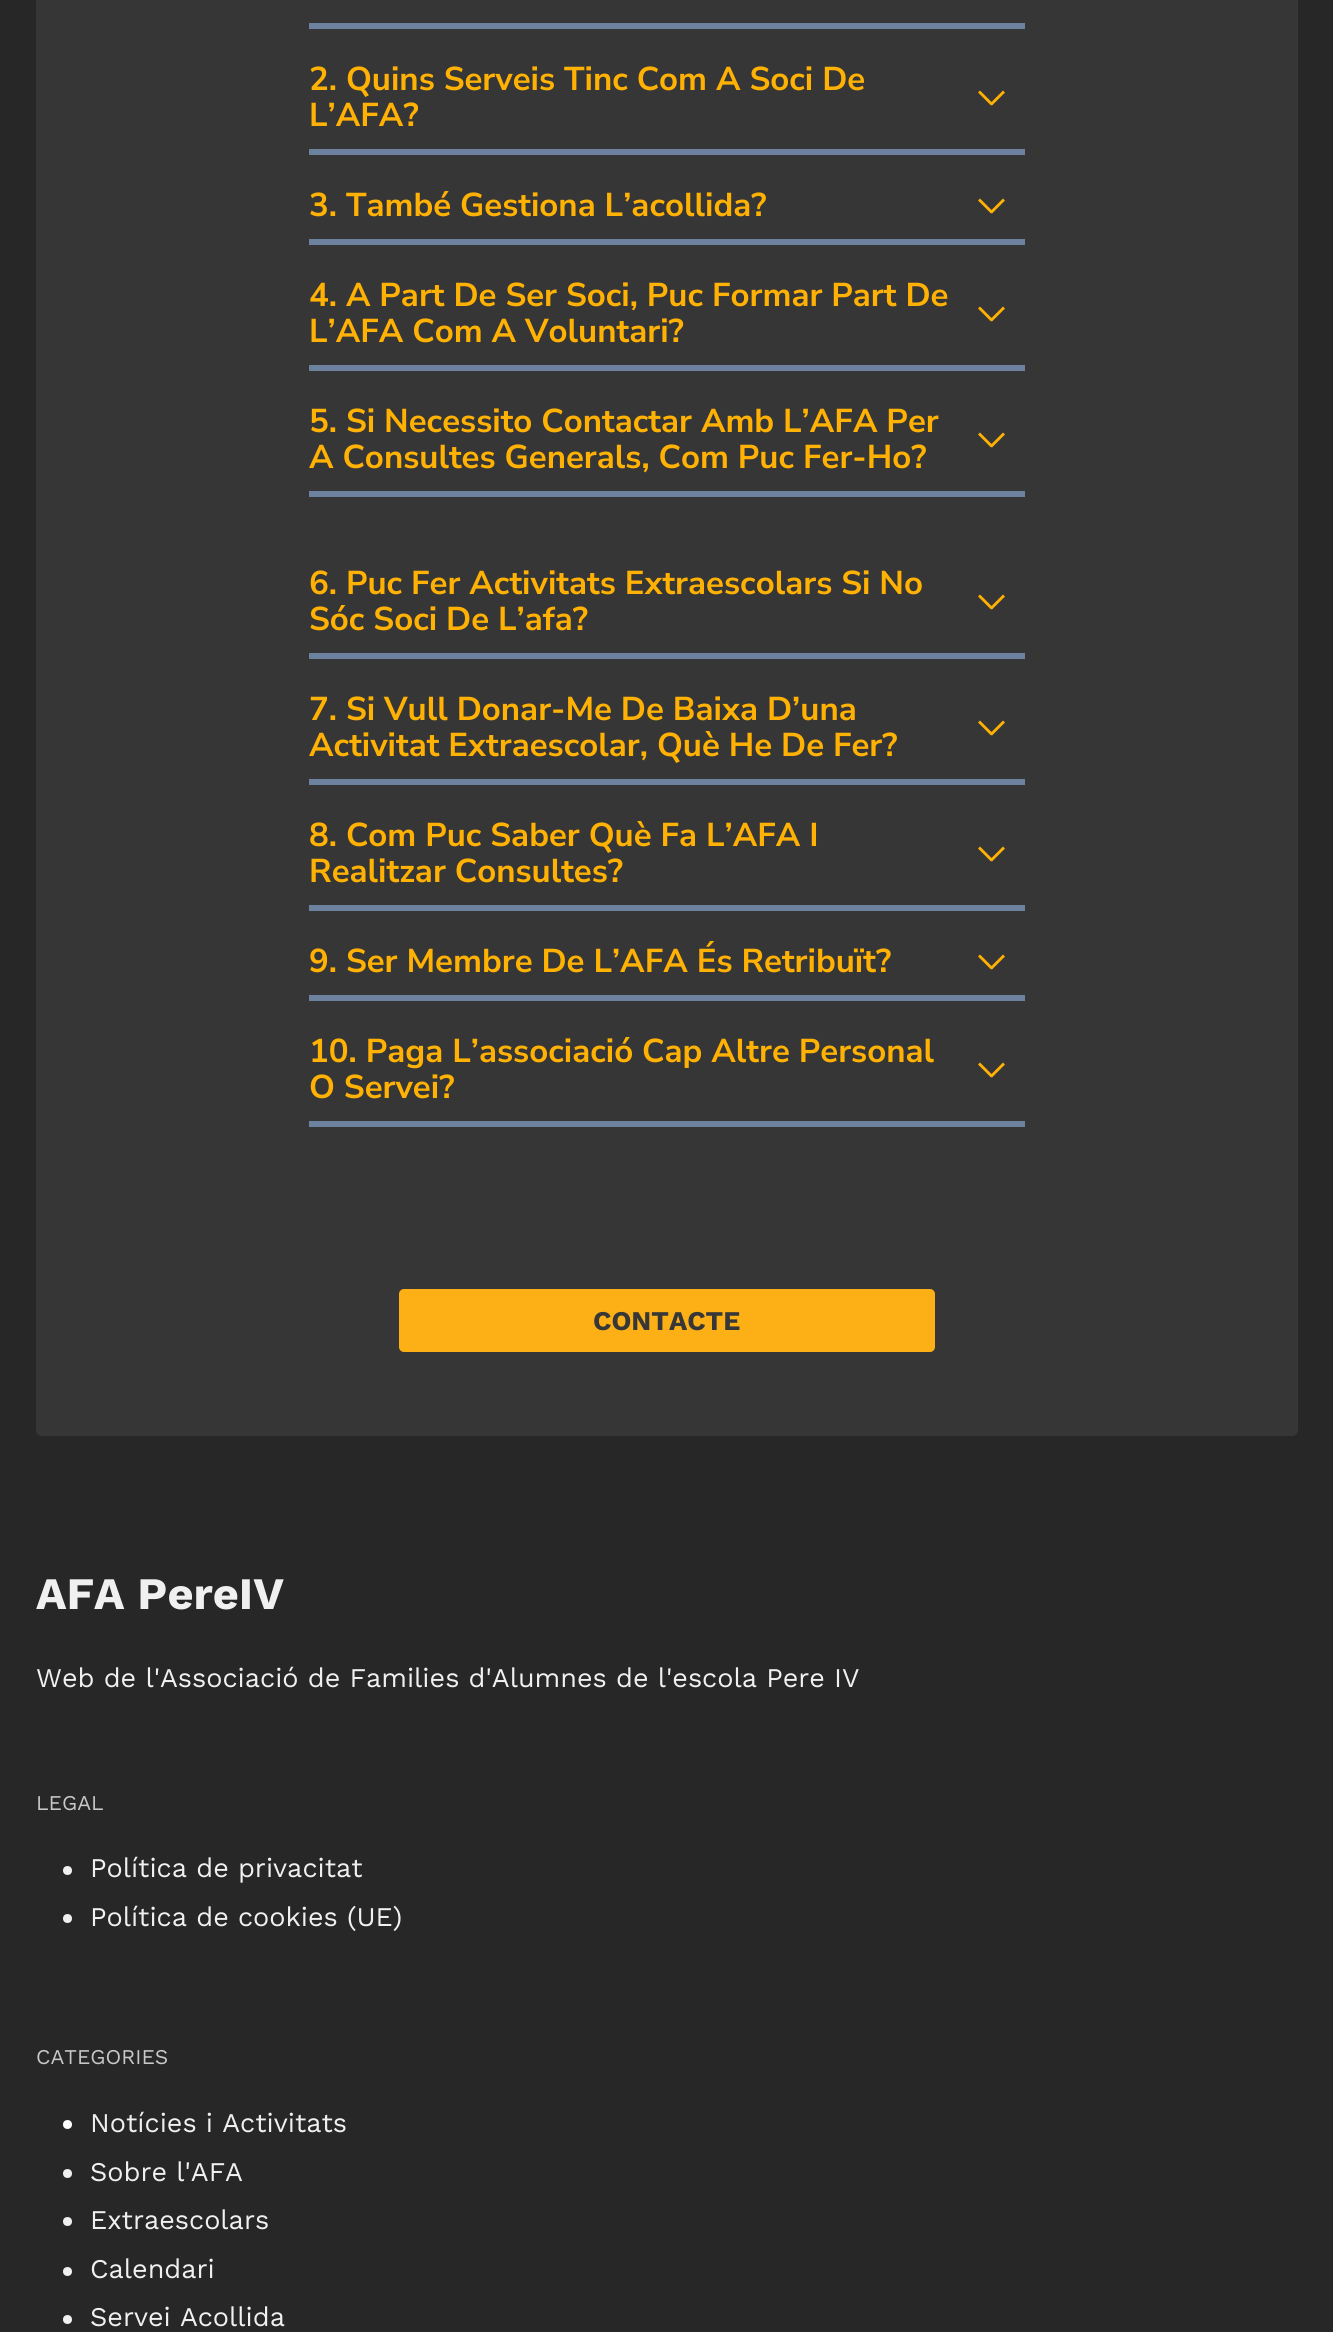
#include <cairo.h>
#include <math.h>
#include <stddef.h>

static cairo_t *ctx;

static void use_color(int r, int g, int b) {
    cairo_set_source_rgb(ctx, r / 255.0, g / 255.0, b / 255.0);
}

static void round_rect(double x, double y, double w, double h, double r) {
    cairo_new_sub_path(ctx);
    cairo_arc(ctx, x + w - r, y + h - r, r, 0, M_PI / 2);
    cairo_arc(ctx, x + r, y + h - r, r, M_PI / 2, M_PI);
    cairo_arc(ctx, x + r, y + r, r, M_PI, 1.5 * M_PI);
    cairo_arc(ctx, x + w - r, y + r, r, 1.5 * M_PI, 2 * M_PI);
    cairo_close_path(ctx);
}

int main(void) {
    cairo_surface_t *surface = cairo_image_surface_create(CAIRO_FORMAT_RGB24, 1333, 2332);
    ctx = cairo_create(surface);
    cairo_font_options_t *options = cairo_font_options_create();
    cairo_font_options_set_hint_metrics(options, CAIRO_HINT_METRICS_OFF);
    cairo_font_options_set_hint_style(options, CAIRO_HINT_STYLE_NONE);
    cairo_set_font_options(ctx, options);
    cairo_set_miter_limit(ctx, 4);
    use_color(39, 39, 39);
    cairo_paint(ctx);
    use_color(54, 54, 54);
    round_rect(36, -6, 1262, 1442, 6);
    cairo_fill(ctx);
    use_color(109, 130, 158);
    cairo_rectangle(ctx, 309, 23, 716, 6);
    cairo_fill(ctx);
    cairo_rectangle(ctx, 309, 149, 716, 6);
    cairo_fill(ctx);
    cairo_select_font_face(ctx, "Nunito Sans ExtraLight", CAIRO_FONT_SLANT_NORMAL, CAIRO_FONT_WEIGHT_NORMAL);
    cairo_set_font_size(ctx, 33);
    use_color(255, 177, 4);
    cairo_move_to(ctx, 309, 90);
    cairo_show_text(ctx, "2. Quins Serveis Tinc Com A Soci De");
    cairo_move_to(ctx, 309, 126);
    cairo_show_text(ctx, "L’AFA?");
    cairo_new_path(ctx);
    cairo_move_to(ctx, 980, 90.5);
    cairo_line_to(ctx, 993, 103.5);
    cairo_line_to(ctx, 991, 105.5);
    cairo_line_to(ctx, 978, 92.5);
    cairo_close_path(ctx);
    cairo_fill(ctx);
    cairo_new_path(ctx);
    cairo_move_to(ctx, 990, 103.5);
    cairo_line_to(ctx, 1003, 90.5);
    cairo_line_to(ctx, 1005, 92.5);
    cairo_line_to(ctx, 992, 105.5);
    cairo_close_path(ctx);
    cairo_fill(ctx);
    use_color(109, 130, 158);
    cairo_rectangle(ctx, 309, 239, 716, 6);
    cairo_fill(ctx);
    use_color(255, 177, 4);
    cairo_move_to(ctx, 309, 216);
    cairo_show_text(ctx, "3. També Gestiona L’acollida?");
    cairo_new_path(ctx);
    cairo_move_to(ctx, 980, 198.5);
    cairo_line_to(ctx, 993, 211.5);
    cairo_line_to(ctx, 991, 213.5);
    cairo_line_to(ctx, 978, 200.5);
    cairo_close_path(ctx);
    cairo_fill(ctx);
    cairo_new_path(ctx);
    cairo_move_to(ctx, 990, 211.5);
    cairo_line_to(ctx, 1003, 198.5);
    cairo_line_to(ctx, 1005, 200.5);
    cairo_line_to(ctx, 992, 213.5);
    cairo_close_path(ctx);
    cairo_fill(ctx);
    use_color(109, 130, 158);
    cairo_rectangle(ctx, 309, 365, 716, 6);
    cairo_fill(ctx);
    use_color(255, 177, 4);
    cairo_move_to(ctx, 309, 306);
    cairo_show_text(ctx, "4. A Part De Ser Soci, Puc Formar Part De");
    cairo_move_to(ctx, 309, 342);
    cairo_show_text(ctx, "L’AFA Com A Voluntari?");
    cairo_new_path(ctx);
    cairo_move_to(ctx, 980, 306.5);
    cairo_line_to(ctx, 993, 319.5);
    cairo_line_to(ctx, 991, 321.5);
    cairo_line_to(ctx, 978, 308.5);
    cairo_close_path(ctx);
    cairo_fill(ctx);
    cairo_new_path(ctx);
    cairo_move_to(ctx, 990, 319.5);
    cairo_line_to(ctx, 1003, 306.5);
    cairo_line_to(ctx, 1005, 308.5);
    cairo_line_to(ctx, 992, 321.5);
    cairo_close_path(ctx);
    cairo_fill(ctx);
    use_color(109, 130, 158);
    cairo_rectangle(ctx, 309, 491, 716, 6);
    cairo_fill(ctx);
    use_color(255, 177, 4);
    cairo_move_to(ctx, 309, 432);
    cairo_show_text(ctx, "5. Si Necessito Contactar Amb L’AFA Per");
    cairo_move_to(ctx, 309, 468);
    cairo_show_text(ctx, "A Consultes Generals, Com Puc Fer-Ho?");
    cairo_new_path(ctx);
    cairo_move_to(ctx, 980, 432.5);
    cairo_line_to(ctx, 993, 445.5);
    cairo_line_to(ctx, 991, 447.5);
    cairo_line_to(ctx, 978, 434.5);
    cairo_close_path(ctx);
    cairo_fill(ctx);
    cairo_new_path(ctx);
    cairo_move_to(ctx, 990, 445.5);
    cairo_line_to(ctx, 1003, 432.5);
    cairo_line_to(ctx, 1005, 434.5);
    cairo_line_to(ctx, 992, 447.5);
    cairo_close_path(ctx);
    cairo_fill(ctx);
    use_color(109, 130, 158);
    cairo_rectangle(ctx, 309, 653, 716, 6);
    cairo_fill(ctx);
    use_color(255, 177, 4);
    cairo_move_to(ctx, 309, 594);
    cairo_show_text(ctx, "6. Puc Fer Activitats Extraescolars Si No");
    cairo_move_to(ctx, 309, 630);
    cairo_show_text(ctx, "Sóc Soci De L’afa?");
    cairo_new_path(ctx);
    cairo_move_to(ctx, 980, 594.5);
    cairo_line_to(ctx, 993, 607.5);
    cairo_line_to(ctx, 991, 609.5);
    cairo_line_to(ctx, 978, 596.5);
    cairo_close_path(ctx);
    cairo_fill(ctx);
    cairo_new_path(ctx);
    cairo_move_to(ctx, 990, 607.5);
    cairo_line_to(ctx, 1003, 594.5);
    cairo_line_to(ctx, 1005, 596.5);
    cairo_line_to(ctx, 992, 609.5);
    cairo_close_path(ctx);
    cairo_fill(ctx);
    use_color(109, 130, 158);
    cairo_rectangle(ctx, 309, 779, 716, 6);
    cairo_fill(ctx);
    use_color(255, 177, 4);
    cairo_move_to(ctx, 309, 720);
    cairo_show_text(ctx, "7. Si Vull Donar-Me De Baixa D’una");
    cairo_move_to(ctx, 309, 756);
    cairo_show_text(ctx, "Activitat Extraescolar, Què He De Fer?");
    cairo_new_path(ctx);
    cairo_move_to(ctx, 980, 720.5);
    cairo_line_to(ctx, 993, 733.5);
    cairo_line_to(ctx, 991, 735.5);
    cairo_line_to(ctx, 978, 722.5);
    cairo_close_path(ctx);
    cairo_fill(ctx);
    cairo_new_path(ctx);
    cairo_move_to(ctx, 990, 733.5);
    cairo_line_to(ctx, 1003, 720.5);
    cairo_line_to(ctx, 1005, 722.5);
    cairo_line_to(ctx, 992, 735.5);
    cairo_close_path(ctx);
    cairo_fill(ctx);
    use_color(109, 130, 158);
    cairo_rectangle(ctx, 309, 905, 716, 6);
    cairo_fill(ctx);
    use_color(255, 177, 4);
    cairo_move_to(ctx, 309, 846);
    cairo_show_text(ctx, "8. Com Puc Saber Què Fa L’AFA I");
    cairo_move_to(ctx, 309, 882);
    cairo_show_text(ctx, "Realitzar Consultes?");
    cairo_new_path(ctx);
    cairo_move_to(ctx, 980, 846.5);
    cairo_line_to(ctx, 993, 859.5);
    cairo_line_to(ctx, 991, 861.5);
    cairo_line_to(ctx, 978, 848.5);
    cairo_close_path(ctx);
    cairo_fill(ctx);
    cairo_new_path(ctx);
    cairo_move_to(ctx, 990, 859.5);
    cairo_line_to(ctx, 1003, 846.5);
    cairo_line_to(ctx, 1005, 848.5);
    cairo_line_to(ctx, 992, 861.5);
    cairo_close_path(ctx);
    cairo_fill(ctx);
    use_color(109, 130, 158);
    cairo_rectangle(ctx, 309, 995, 716, 6);
    cairo_fill(ctx);
    use_color(255, 177, 4);
    cairo_move_to(ctx, 309, 972);
    cairo_show_text(ctx, "9. Ser Membre De L’AFA És Retribuït?");
    cairo_new_path(ctx);
    cairo_move_to(ctx, 980, 954.5);
    cairo_line_to(ctx, 993, 967.5);
    cairo_line_to(ctx, 991, 969.5);
    cairo_line_to(ctx, 978, 956.5);
    cairo_close_path(ctx);
    cairo_fill(ctx);
    cairo_new_path(ctx);
    cairo_move_to(ctx, 990, 967.5);
    cairo_line_to(ctx, 1003, 954.5);
    cairo_line_to(ctx, 1005, 956.5);
    cairo_line_to(ctx, 992, 969.5);
    cairo_close_path(ctx);
    cairo_fill(ctx);
    use_color(109, 130, 158);
    cairo_rectangle(ctx, 309, 1121, 716, 6);
    cairo_fill(ctx);
    use_color(255, 177, 4);
    cairo_move_to(ctx, 309, 1062);
    cairo_show_text(ctx, "10. Paga L’associació Cap Altre Personal");
    cairo_move_to(ctx, 309, 1098);
    cairo_show_text(ctx, "O Servei?");
    cairo_new_path(ctx);
    cairo_move_to(ctx, 980, 1062.5);
    cairo_line_to(ctx, 993, 1075.5);
    cairo_line_to(ctx, 991, 1077.5);
    cairo_line_to(ctx, 978, 1064.5);
    cairo_close_path(ctx);
    cairo_fill(ctx);
    cairo_new_path(ctx);
    cairo_move_to(ctx, 990, 1075.5);
    cairo_line_to(ctx, 1003, 1062.5);
    cairo_line_to(ctx, 1005, 1064.5);
    cairo_line_to(ctx, 992, 1077.5);
    cairo_close_path(ctx);
    cairo_fill(ctx);
    use_color(252, 176, 22);
    round_rect(399, 1289, 536, 63, 5);
    cairo_fill(ctx);
    cairo_select_font_face(ctx, "Work Sans", CAIRO_FONT_SLANT_NORMAL, CAIRO_FONT_WEIGHT_BOLD);
    cairo_set_font_size(ctx, 27);
    use_color(55, 55, 55);
    cairo_move_to(ctx, 593, 1330);
    cairo_show_text(ctx, "CONTACTE");
    cairo_set_font_size(ctx, 45);
    use_color(240, 240, 241);
    cairo_move_to(ctx, 36, 1609);
    cairo_show_text(ctx, "AFA PereIV");
    cairo_select_font_face(ctx, "Work Sans", CAIRO_FONT_SLANT_NORMAL, CAIRO_FONT_WEIGHT_NORMAL);
    cairo_set_font_size(ctx, 27);
    cairo_move_to(ctx, 36, 1687);
    cairo_show_text(ctx, "Web de l'Associació de Families d'Alumnes de l'escola Pere IV");
    cairo_set_font_size(ctx, 21);
    use_color(200, 200, 200);
    cairo_move_to(ctx, 36, 1810);
    cairo_show_text(ctx, "LEGAL");
    use_color(240, 240, 241);
    cairo_new_path(ctx);
    cairo_arc(ctx, 67.5, 1870.5, 4.5, 0, 2 * M_PI);
    cairo_fill(ctx);
    cairo_set_font_size(ctx, 27);
    cairo_move_to(ctx, 90, 1877);
    cairo_show_text(ctx, "Política de privacitat");
    cairo_new_path(ctx);
    cairo_arc(ctx, 67.5, 1918.5, 4.5, 0, 2 * M_PI);
    cairo_fill(ctx);
    cairo_move_to(ctx, 90, 1926);
    cairo_show_text(ctx, "Política de cookies (UE)");
    cairo_set_font_size(ctx, 21);
    use_color(200, 200, 200);
    cairo_move_to(ctx, 36, 2064);
    cairo_show_text(ctx, "CATEGORIES");
    use_color(255, 255, 255);
    cairo_new_path(ctx);
    cairo_arc(ctx, 67.5, 2124.5, 4.5, 0, 2 * M_PI);
    cairo_fill(ctx);
    cairo_set_font_size(ctx, 27);
    use_color(240, 240, 241);
    cairo_move_to(ctx, 90, 2132);
    cairo_show_text(ctx, "Notícies i Activitats");
    cairo_new_path(ctx);
    cairo_arc(ctx, 67.5, 2173.5, 4.5, 0, 2 * M_PI);
    cairo_fill(ctx);
    cairo_move_to(ctx, 90, 2181);
    cairo_show_text(ctx, "Sobre l'AFA");
    cairo_new_path(ctx);
    cairo_arc(ctx, 67.5, 2221.5, 4.5, 0, 2 * M_PI);
    cairo_fill(ctx);
    cairo_move_to(ctx, 90, 2229);
    cairo_show_text(ctx, "Extraescolars");
    cairo_new_path(ctx);
    cairo_arc(ctx, 67.5, 2271.5, 4.5, 0, 2 * M_PI);
    cairo_fill(ctx);
    cairo_move_to(ctx, 90, 2278);
    cairo_show_text(ctx, "Calendari");
    cairo_new_path(ctx);
    cairo_arc(ctx, 67.5, 2319.5, 4.5, 0, 2 * M_PI);
    cairo_fill(ctx);
    cairo_move_to(ctx, 90, 2326);
    cairo_show_text(ctx, "Servei Acollida");
    cairo_surface_write_to_png(surface, "result.png");
    cairo_font_options_destroy(options);
    cairo_destroy(ctx);
    cairo_surface_destroy(surface);
    return 0;
}
